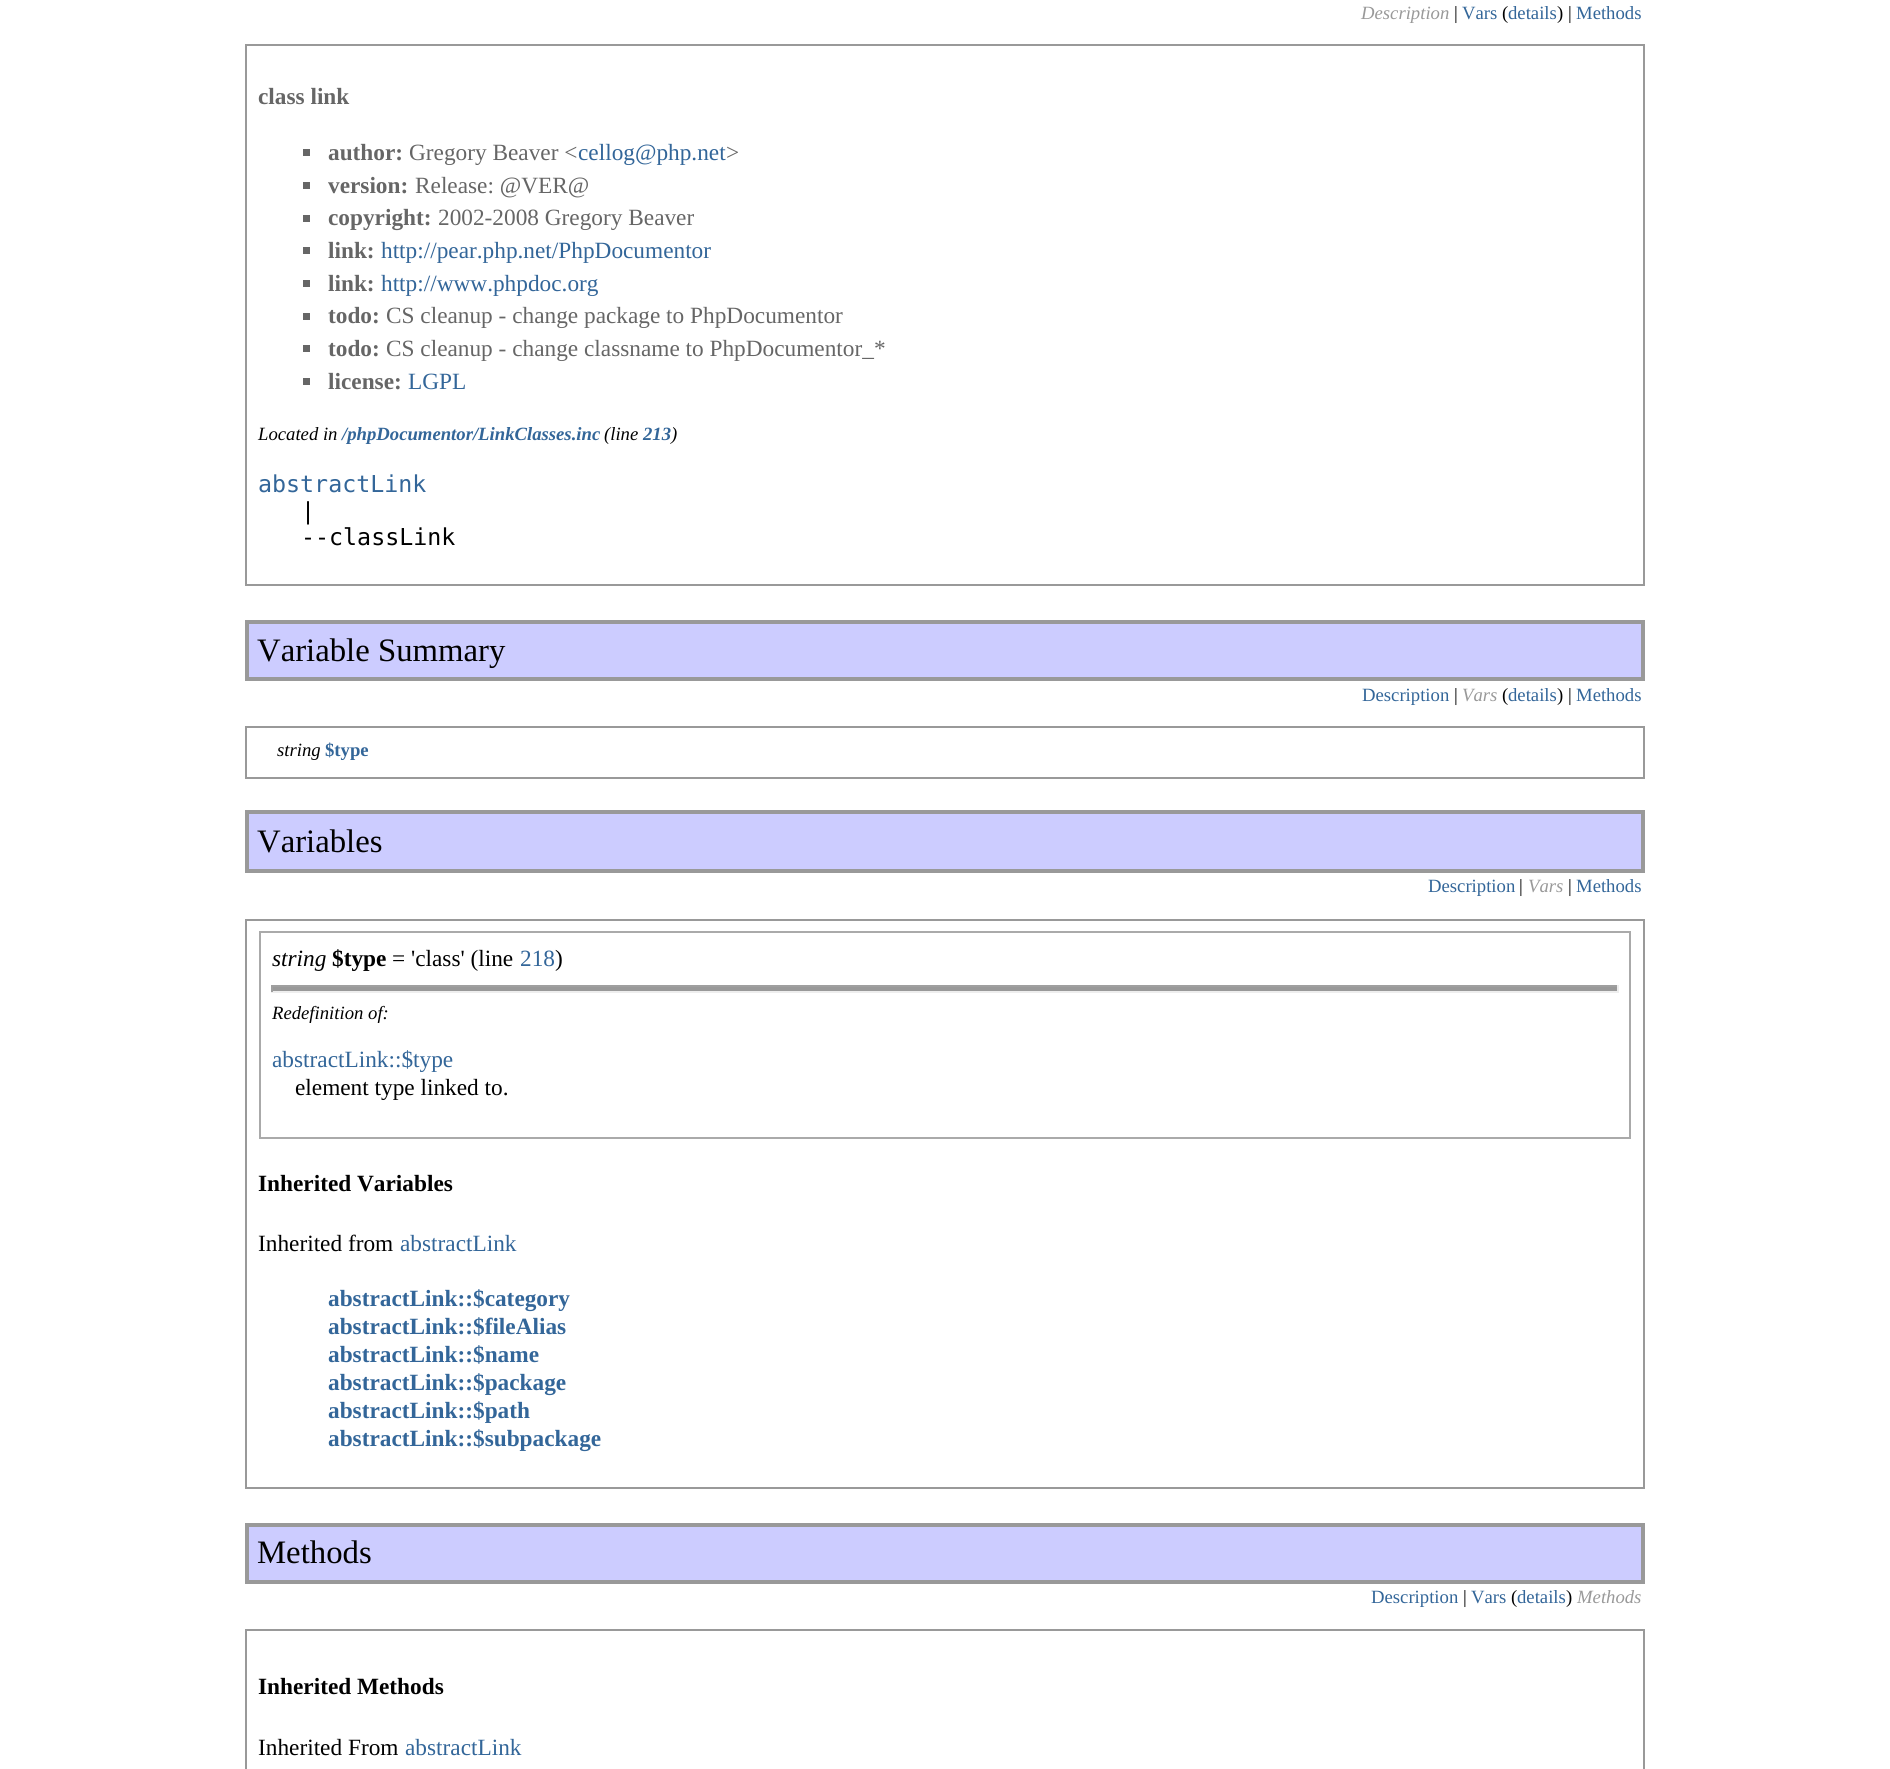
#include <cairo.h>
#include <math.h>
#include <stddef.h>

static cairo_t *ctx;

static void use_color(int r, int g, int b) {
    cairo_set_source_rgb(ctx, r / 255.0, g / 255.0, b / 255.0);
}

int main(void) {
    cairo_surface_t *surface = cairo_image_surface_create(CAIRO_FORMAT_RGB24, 1890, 1769);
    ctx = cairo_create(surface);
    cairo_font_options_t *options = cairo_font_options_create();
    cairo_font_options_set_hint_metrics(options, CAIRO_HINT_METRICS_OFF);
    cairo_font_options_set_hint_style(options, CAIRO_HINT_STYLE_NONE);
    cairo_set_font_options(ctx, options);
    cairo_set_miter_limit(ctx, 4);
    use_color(255, 255, 255);
    cairo_paint(ctx);
    cairo_select_font_face(ctx, "Liberation Serif", CAIRO_FONT_SLANT_ITALIC, CAIRO_FONT_WEIGHT_NORMAL);
    cairo_set_font_size(ctx, 18.7);
    use_color(153, 153, 153);
    cairo_move_to(ctx, 1361, 19);
    cairo_show_text(ctx, "Description");
    cairo_select_font_face(ctx, "Liberation Serif", CAIRO_FONT_SLANT_NORMAL, CAIRO_FONT_WEIGHT_NORMAL);
    use_color(0, 0, 0);
    cairo_move_to(ctx, 1454, 19);
    cairo_show_text(ctx, "|");
    use_color(51, 102, 153);
    cairo_move_to(ctx, 1462, 19);
    cairo_show_text(ctx, "Vars");
    use_color(0, 0, 0);
    cairo_move_to(ctx, 1502, 19);
    cairo_show_text(ctx, "(");
    use_color(51, 102, 153);
    cairo_move_to(ctx, 1508, 19);
    cairo_show_text(ctx, "details");
    use_color(0, 0, 0);
    cairo_move_to(ctx, 1557, 19);
    cairo_show_text(ctx, ") |");
    use_color(51, 102, 153);
    cairo_move_to(ctx, 1576, 19);
    cairo_show_text(ctx, "Methods");
    cairo_rectangle(ctx, 246, 45, 1398, 540);
    use_color(153, 153, 153);
    cairo_stroke(ctx);
    cairo_select_font_face(ctx, "Liberation Serif", CAIRO_FONT_SLANT_NORMAL, CAIRO_FONT_WEIGHT_BOLD);
    cairo_set_font_size(ctx, 23.3);
    use_color(102, 102, 102);
    cairo_move_to(ctx, 258, 104);
    cairo_show_text(ctx, "class link");
    cairo_rectangle(ctx, 303, 149, 7, 7);
    cairo_fill(ctx);
    cairo_move_to(ctx, 328, 160);
    cairo_show_text(ctx, "author:");
    cairo_select_font_face(ctx, "Liberation Serif", CAIRO_FONT_SLANT_NORMAL, CAIRO_FONT_WEIGHT_NORMAL);
    cairo_move_to(ctx, 409, 160);
    cairo_show_text(ctx, "Gregory Beaver <");
    use_color(51, 102, 153);
    cairo_move_to(ctx, 578, 160);
    cairo_show_text(ctx, "cellog@php.net");
    use_color(102, 102, 102);
    cairo_move_to(ctx, 726, 160);
    cairo_show_text(ctx, ">");
    cairo_rectangle(ctx, 303, 182, 7, 7);
    cairo_fill(ctx);
    cairo_select_font_face(ctx, "Liberation Serif", CAIRO_FONT_SLANT_NORMAL, CAIRO_FONT_WEIGHT_BOLD);
    cairo_move_to(ctx, 328, 193);
    cairo_show_text(ctx, "version:");
    cairo_select_font_face(ctx, "Liberation Serif", CAIRO_FONT_SLANT_NORMAL, CAIRO_FONT_WEIGHT_NORMAL);
    cairo_move_to(ctx, 415, 193);
    cairo_show_text(ctx, "Release: @VER@");
    cairo_rectangle(ctx, 303, 215, 7, 7);
    cairo_fill(ctx);
    cairo_select_font_face(ctx, "Liberation Serif", CAIRO_FONT_SLANT_NORMAL, CAIRO_FONT_WEIGHT_BOLD);
    cairo_move_to(ctx, 328, 225);
    cairo_show_text(ctx, "copyright:");
    cairo_select_font_face(ctx, "Liberation Serif", CAIRO_FONT_SLANT_NORMAL, CAIRO_FONT_WEIGHT_NORMAL);
    cairo_move_to(ctx, 438, 225);
    cairo_show_text(ctx, "2002-2008 Gregory Beaver");
    cairo_rectangle(ctx, 303, 247, 7, 7);
    cairo_fill(ctx);
    cairo_select_font_face(ctx, "Liberation Serif", CAIRO_FONT_SLANT_NORMAL, CAIRO_FONT_WEIGHT_BOLD);
    cairo_move_to(ctx, 328, 258);
    cairo_show_text(ctx, "link:");
    cairo_select_font_face(ctx, "Liberation Serif", CAIRO_FONT_SLANT_NORMAL, CAIRO_FONT_WEIGHT_NORMAL);
    use_color(51, 102, 153);
    cairo_move_to(ctx, 381, 258);
    cairo_show_text(ctx, "http://pear.php.net/PhpDocumentor");
    use_color(102, 102, 102);
    cairo_rectangle(ctx, 303, 280, 7, 7);
    cairo_fill(ctx);
    cairo_select_font_face(ctx, "Liberation Serif", CAIRO_FONT_SLANT_NORMAL, CAIRO_FONT_WEIGHT_BOLD);
    cairo_move_to(ctx, 328, 291);
    cairo_show_text(ctx, "link:");
    cairo_select_font_face(ctx, "Liberation Serif", CAIRO_FONT_SLANT_NORMAL, CAIRO_FONT_WEIGHT_NORMAL);
    use_color(51, 102, 153);
    cairo_move_to(ctx, 381, 291);
    cairo_show_text(ctx, "http://www.phpdoc.org");
    use_color(102, 102, 102);
    cairo_rectangle(ctx, 303, 313, 7, 7);
    cairo_fill(ctx);
    cairo_select_font_face(ctx, "Liberation Serif", CAIRO_FONT_SLANT_NORMAL, CAIRO_FONT_WEIGHT_BOLD);
    cairo_move_to(ctx, 328, 323);
    cairo_show_text(ctx, "todo:");
    cairo_select_font_face(ctx, "Liberation Serif", CAIRO_FONT_SLANT_NORMAL, CAIRO_FONT_WEIGHT_NORMAL);
    cairo_move_to(ctx, 386, 323);
    cairo_show_text(ctx, "CS cleanup - change package to PhpDocumentor");
    cairo_rectangle(ctx, 303, 345, 7, 7);
    cairo_fill(ctx);
    cairo_select_font_face(ctx, "Liberation Serif", CAIRO_FONT_SLANT_NORMAL, CAIRO_FONT_WEIGHT_BOLD);
    cairo_move_to(ctx, 328, 356);
    cairo_show_text(ctx, "todo:");
    cairo_select_font_face(ctx, "Liberation Serif", CAIRO_FONT_SLANT_NORMAL, CAIRO_FONT_WEIGHT_NORMAL);
    cairo_move_to(ctx, 386, 356);
    cairo_show_text(ctx, "CS cleanup - change classname to PhpDocumentor_*");
    cairo_rectangle(ctx, 303, 378, 7, 7);
    cairo_fill(ctx);
    cairo_select_font_face(ctx, "Liberation Serif", CAIRO_FONT_SLANT_NORMAL, CAIRO_FONT_WEIGHT_BOLD);
    cairo_move_to(ctx, 328, 389);
    cairo_show_text(ctx, "license:");
    cairo_select_font_face(ctx, "Liberation Serif", CAIRO_FONT_SLANT_NORMAL, CAIRO_FONT_WEIGHT_NORMAL);
    use_color(51, 102, 153);
    cairo_move_to(ctx, 408, 389);
    cairo_show_text(ctx, "LGPL");
    cairo_select_font_face(ctx, "Liberation Serif", CAIRO_FONT_SLANT_ITALIC, CAIRO_FONT_WEIGHT_NORMAL);
    cairo_set_font_size(ctx, 18.7);
    use_color(0, 0, 0);
    cairo_move_to(ctx, 258, 440);
    cairo_show_text(ctx, "Located in");
    cairo_select_font_face(ctx, "Liberation Serif", CAIRO_FONT_SLANT_ITALIC, CAIRO_FONT_WEIGHT_BOLD);
    use_color(51, 102, 153);
    cairo_move_to(ctx, 342, 440);
    cairo_show_text(ctx, "/phpDocumentor/LinkClasses.inc");
    cairo_select_font_face(ctx, "Liberation Serif", CAIRO_FONT_SLANT_ITALIC, CAIRO_FONT_WEIGHT_NORMAL);
    use_color(0, 0, 0);
    cairo_move_to(ctx, 604, 440);
    cairo_show_text(ctx, "(line");
    cairo_select_font_face(ctx, "Liberation Serif", CAIRO_FONT_SLANT_ITALIC, CAIRO_FONT_WEIGHT_BOLD);
    use_color(51, 102, 153);
    cairo_move_to(ctx, 643, 440);
    cairo_show_text(ctx, "213");
    cairo_select_font_face(ctx, "Liberation Serif", CAIRO_FONT_SLANT_ITALIC, CAIRO_FONT_WEIGHT_NORMAL);
    use_color(0, 0, 0);
    cairo_move_to(ctx, 671, 440);
    cairo_show_text(ctx, ")");
    cairo_select_font_face(ctx, "DejaVu Sans Mono", CAIRO_FONT_SLANT_NORMAL, CAIRO_FONT_WEIGHT_NORMAL);
    cairo_set_font_size(ctx, 23.3);
    use_color(51, 102, 153);
    cairo_move_to(ctx, 258, 492);
    cairo_show_text(ctx, "abstractLink");
    use_color(0, 0, 0);
    cairo_move_to(ctx, 301, 519);
    cairo_show_text(ctx, "|");
    cairo_move_to(ctx, 301, 545);
    cairo_show_text(ctx, "--classLink");
    use_color(204, 204, 255);
    cairo_rectangle(ctx, 247, 622, 1396, 57);
    cairo_fill_preserve(ctx);
    use_color(153, 153, 153);
    cairo_set_line_width(ctx, 4);
    cairo_stroke(ctx);
    cairo_select_font_face(ctx, "Liberation Serif", CAIRO_FONT_SLANT_NORMAL, CAIRO_FONT_WEIGHT_NORMAL);
    cairo_set_font_size(ctx, 32.75);
    use_color(0, 0, 0);
    cairo_move_to(ctx, 257, 661);
    cairo_show_text(ctx, "Variable Summary");
    cairo_set_font_size(ctx, 18.7);
    use_color(51, 102, 153);
    cairo_move_to(ctx, 1362, 701);
    cairo_show_text(ctx, "Description");
    use_color(0, 0, 0);
    cairo_move_to(ctx, 1454, 701);
    cairo_show_text(ctx, "|");
    cairo_select_font_face(ctx, "Liberation Serif", CAIRO_FONT_SLANT_ITALIC, CAIRO_FONT_WEIGHT_NORMAL);
    use_color(153, 153, 153);
    cairo_move_to(ctx, 1462, 701);
    cairo_show_text(ctx, "Vars");
    cairo_select_font_face(ctx, "Liberation Serif", CAIRO_FONT_SLANT_NORMAL, CAIRO_FONT_WEIGHT_NORMAL);
    use_color(0, 0, 0);
    cairo_move_to(ctx, 1502, 701);
    cairo_show_text(ctx, "(");
    use_color(51, 102, 153);
    cairo_move_to(ctx, 1508, 701);
    cairo_show_text(ctx, "details");
    use_color(0, 0, 0);
    cairo_move_to(ctx, 1557, 701);
    cairo_show_text(ctx, ") |");
    use_color(51, 102, 153);
    cairo_move_to(ctx, 1576, 701);
    cairo_show_text(ctx, "Methods");
    cairo_rectangle(ctx, 246, 727, 1398, 51);
    use_color(153, 153, 153);
    cairo_set_line_width(ctx, 2);
    cairo_stroke(ctx);
    cairo_select_font_face(ctx, "Liberation Serif", CAIRO_FONT_SLANT_ITALIC, CAIRO_FONT_WEIGHT_NORMAL);
    use_color(0, 0, 0);
    cairo_move_to(ctx, 277, 756);
    cairo_show_text(ctx, "string");
    cairo_select_font_face(ctx, "Liberation Serif", CAIRO_FONT_SLANT_NORMAL, CAIRO_FONT_WEIGHT_BOLD);
    use_color(51, 102, 153);
    cairo_move_to(ctx, 325, 756);
    cairo_show_text(ctx, "$type");
    use_color(204, 204, 255);
    cairo_rectangle(ctx, 247, 812, 1396, 59);
    cairo_fill_preserve(ctx);
    use_color(153, 153, 153);
    cairo_set_line_width(ctx, 4);
    cairo_stroke(ctx);
    cairo_select_font_face(ctx, "Liberation Serif", CAIRO_FONT_SLANT_NORMAL, CAIRO_FONT_WEIGHT_NORMAL);
    cairo_set_font_size(ctx, 32.75);
    use_color(0, 0, 0);
    cairo_move_to(ctx, 257, 852);
    cairo_show_text(ctx, "Variables");
    cairo_set_font_size(ctx, 18.7);
    use_color(51, 102, 153);
    cairo_move_to(ctx, 1428, 892);
    cairo_show_text(ctx, "Description");
    use_color(0, 0, 0);
    cairo_move_to(ctx, 1519, 892);
    cairo_show_text(ctx, "|");
    cairo_select_font_face(ctx, "Liberation Serif", CAIRO_FONT_SLANT_ITALIC, CAIRO_FONT_WEIGHT_NORMAL);
    use_color(153, 153, 153);
    cairo_move_to(ctx, 1528, 892);
    cairo_show_text(ctx, "Vars");
    cairo_select_font_face(ctx, "Liberation Serif", CAIRO_FONT_SLANT_NORMAL, CAIRO_FONT_WEIGHT_NORMAL);
    use_color(0, 0, 0);
    cairo_move_to(ctx, 1568, 892);
    cairo_show_text(ctx, "|");
    use_color(51, 102, 153);
    cairo_move_to(ctx, 1576, 892);
    cairo_show_text(ctx, "Methods");
    cairo_rectangle(ctx, 246, 920, 1398, 568);
    use_color(153, 153, 153);
    cairo_set_line_width(ctx, 2);
    cairo_stroke(ctx);
    cairo_rectangle(ctx, 260, 932, 1370, 206);
    use_color(170, 170, 170);
    cairo_stroke(ctx);
    cairo_select_font_face(ctx, "Liberation Serif", CAIRO_FONT_SLANT_ITALIC, CAIRO_FONT_WEIGHT_NORMAL);
    cairo_set_font_size(ctx, 23.3);
    use_color(0, 0, 0);
    cairo_move_to(ctx, 272, 966);
    cairo_show_text(ctx, "string");
    cairo_select_font_face(ctx, "Liberation Serif", CAIRO_FONT_SLANT_NORMAL, CAIRO_FONT_WEIGHT_BOLD);
    cairo_move_to(ctx, 332, 966);
    cairo_show_text(ctx, "$type");
    cairo_select_font_face(ctx, "Liberation Serif", CAIRO_FONT_SLANT_NORMAL, CAIRO_FONT_WEIGHT_NORMAL);
    cairo_move_to(ctx, 392, 966);
    cairo_show_text(ctx, "= 'class' (line");
    use_color(51, 102, 153);
    cairo_move_to(ctx, 520, 966);
    cairo_show_text(ctx, "218");
    use_color(0, 0, 0);
    cairo_move_to(ctx, 555, 966);
    cairo_show_text(ctx, ")");
    use_color(153, 153, 153);
    cairo_rectangle(ctx, 271, 987, 1348, 4);
    cairo_fill(ctx);
    use_color(159, 159, 159);
    cairo_rectangle(ctx, 271, 985, 1348, 2);
    cairo_fill(ctx);
    use_color(238, 238, 238);
    cairo_rectangle(ctx, 1617, 985, 2, 7);
    cairo_fill(ctx);
    cairo_rectangle(ctx, 271, 991, 1348, 2);
    cairo_fill(ctx);
    use_color(159, 159, 159);
    cairo_rectangle(ctx, 271, 985, 2, 7);
    cairo_fill(ctx);
    cairo_select_font_face(ctx, "Liberation Serif", CAIRO_FONT_SLANT_ITALIC, CAIRO_FONT_WEIGHT_NORMAL);
    cairo_set_font_size(ctx, 18.7);
    use_color(0, 0, 0);
    cairo_move_to(ctx, 272, 1019);
    cairo_show_text(ctx, "Redefinition of:");
    cairo_select_font_face(ctx, "Liberation Serif", CAIRO_FONT_SLANT_NORMAL, CAIRO_FONT_WEIGHT_NORMAL);
    cairo_set_font_size(ctx, 23.3);
    use_color(51, 102, 153);
    cairo_move_to(ctx, 272, 1067);
    cairo_show_text(ctx, "abstractLink::$type");
    use_color(0, 0, 0);
    cairo_move_to(ctx, 295, 1095);
    cairo_show_text(ctx, "element type linked to.");
    cairo_select_font_face(ctx, "Liberation Serif", CAIRO_FONT_SLANT_NORMAL, CAIRO_FONT_WEIGHT_BOLD);
    cairo_move_to(ctx, 258, 1191);
    cairo_show_text(ctx, "Inherited Variables");
    cairo_select_font_face(ctx, "Liberation Serif", CAIRO_FONT_SLANT_NORMAL, CAIRO_FONT_WEIGHT_NORMAL);
    cairo_move_to(ctx, 258, 1251);
    cairo_show_text(ctx, "Inherited from");
    use_color(51, 102, 153);
    cairo_move_to(ctx, 400, 1251);
    cairo_show_text(ctx, "abstractLink");
    cairo_select_font_face(ctx, "Liberation Serif", CAIRO_FONT_SLANT_NORMAL, CAIRO_FONT_WEIGHT_BOLD);
    cairo_move_to(ctx, 328, 1306);
    cairo_show_text(ctx, "abstractLink::$category");
    cairo_move_to(ctx, 328, 1334);
    cairo_show_text(ctx, "abstractLink::$fileAlias");
    cairo_move_to(ctx, 328, 1362);
    cairo_show_text(ctx, "abstractLink::$name");
    cairo_move_to(ctx, 328, 1390);
    cairo_show_text(ctx, "abstractLink::$package");
    cairo_move_to(ctx, 328, 1418);
    cairo_show_text(ctx, "abstractLink::$path");
    cairo_move_to(ctx, 328, 1446);
    cairo_show_text(ctx, "abstractLink::$subpackage");
    use_color(204, 204, 255);
    cairo_rectangle(ctx, 247, 1525, 1396, 57);
    cairo_fill_preserve(ctx);
    use_color(153, 153, 153);
    cairo_set_line_width(ctx, 4);
    cairo_stroke(ctx);
    cairo_select_font_face(ctx, "Liberation Serif", CAIRO_FONT_SLANT_NORMAL, CAIRO_FONT_WEIGHT_NORMAL);
    cairo_set_font_size(ctx, 32.75);
    use_color(0, 0, 0);
    cairo_move_to(ctx, 257, 1563);
    cairo_show_text(ctx, "Methods");
    cairo_set_font_size(ctx, 18.7);
    use_color(51, 102, 153);
    cairo_move_to(ctx, 1371, 1603);
    cairo_show_text(ctx, "Description");
    use_color(0, 0, 0);
    cairo_move_to(ctx, 1463, 1603);
    cairo_show_text(ctx, "|");
    use_color(51, 102, 153);
    cairo_move_to(ctx, 1471, 1603);
    cairo_show_text(ctx, "Vars");
    use_color(0, 0, 0);
    cairo_move_to(ctx, 1511, 1603);
    cairo_show_text(ctx, "(");
    use_color(51, 102, 153);
    cairo_move_to(ctx, 1517, 1603);
    cairo_show_text(ctx, "details");
    use_color(0, 0, 0);
    cairo_move_to(ctx, 1566, 1603);
    cairo_show_text(ctx, ")");
    cairo_select_font_face(ctx, "Liberation Serif", CAIRO_FONT_SLANT_ITALIC, CAIRO_FONT_WEIGHT_NORMAL);
    use_color(153, 153, 153);
    cairo_move_to(ctx, 1577, 1603);
    cairo_show_text(ctx, "Methods");
    cairo_rectangle(ctx, 246, 1630, 1398, 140);
    cairo_set_line_width(ctx, 2);
    cairo_stroke(ctx);
    cairo_select_font_face(ctx, "Liberation Serif", CAIRO_FONT_SLANT_NORMAL, CAIRO_FONT_WEIGHT_BOLD);
    cairo_set_font_size(ctx, 23.3);
    use_color(0, 0, 0);
    cairo_move_to(ctx, 258, 1694);
    cairo_show_text(ctx, "Inherited Methods");
    cairo_select_font_face(ctx, "Liberation Serif", CAIRO_FONT_SLANT_NORMAL, CAIRO_FONT_WEIGHT_NORMAL);
    cairo_move_to(ctx, 258, 1755);
    cairo_show_text(ctx, "Inherited From");
    use_color(51, 102, 153);
    cairo_move_to(ctx, 405, 1755);
    cairo_show_text(ctx, "abstractLink");
    cairo_surface_write_to_png(surface, "result.png");
    cairo_font_options_destroy(options);
    cairo_destroy(ctx);
    cairo_surface_destroy(surface);
    return 0;
}
